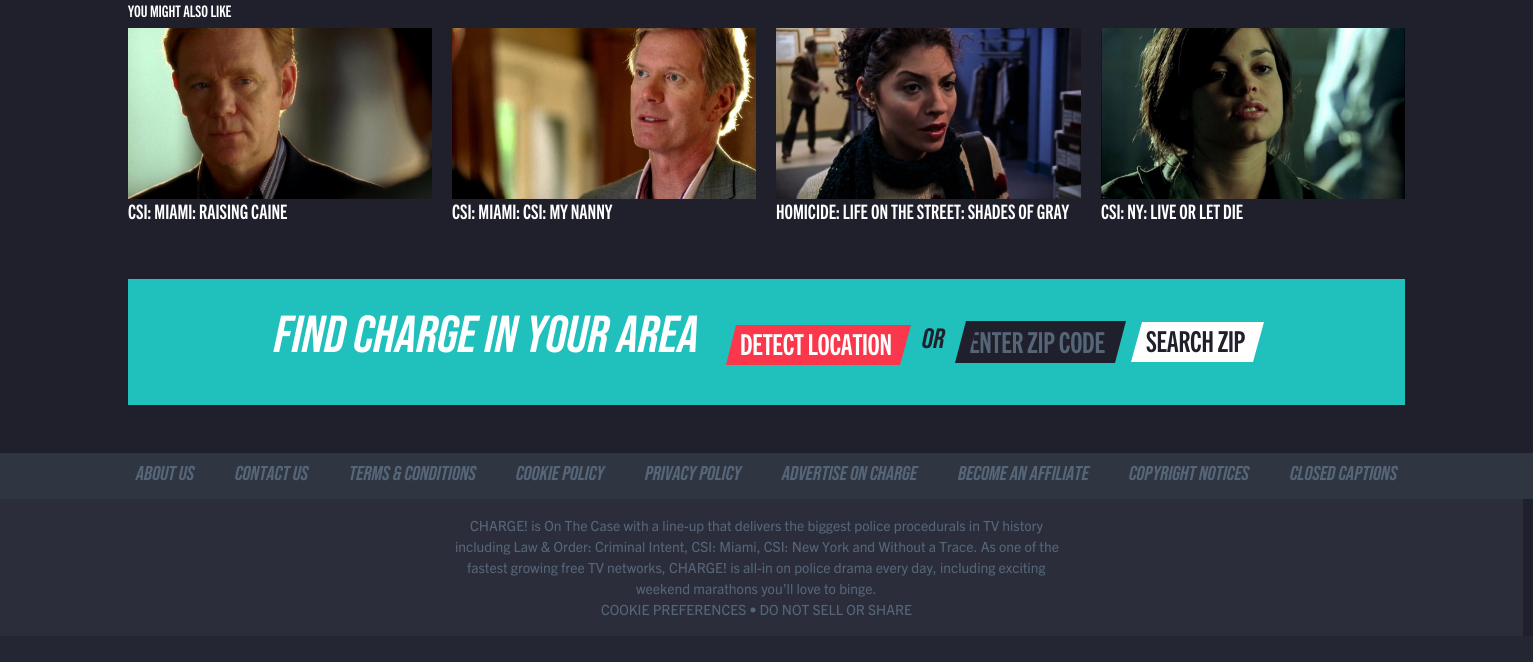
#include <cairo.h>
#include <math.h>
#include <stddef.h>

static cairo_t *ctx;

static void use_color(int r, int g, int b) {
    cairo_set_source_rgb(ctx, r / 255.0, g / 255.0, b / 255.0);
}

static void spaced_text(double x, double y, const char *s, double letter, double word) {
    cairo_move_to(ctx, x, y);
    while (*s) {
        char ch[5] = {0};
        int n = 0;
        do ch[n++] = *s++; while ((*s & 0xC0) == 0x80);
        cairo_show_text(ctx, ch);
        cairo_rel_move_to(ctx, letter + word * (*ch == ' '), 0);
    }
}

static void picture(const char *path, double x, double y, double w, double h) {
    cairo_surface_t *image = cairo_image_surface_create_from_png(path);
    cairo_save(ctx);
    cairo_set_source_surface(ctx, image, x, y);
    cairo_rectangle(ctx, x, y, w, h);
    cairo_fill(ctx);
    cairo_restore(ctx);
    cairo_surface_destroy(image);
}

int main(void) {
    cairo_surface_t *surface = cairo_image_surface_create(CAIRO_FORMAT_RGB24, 1533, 662);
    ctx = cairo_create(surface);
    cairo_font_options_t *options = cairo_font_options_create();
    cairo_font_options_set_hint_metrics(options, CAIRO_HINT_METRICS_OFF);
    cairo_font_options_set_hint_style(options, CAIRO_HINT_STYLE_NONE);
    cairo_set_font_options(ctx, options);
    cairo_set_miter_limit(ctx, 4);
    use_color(32, 32, 44);
    cairo_paint(ctx);
    cairo_select_font_face(ctx, "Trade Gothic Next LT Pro", CAIRO_FONT_SLANT_NORMAL, CAIRO_FONT_WEIGHT_BOLD);
    cairo_set_font_size(ctx, 16);
    use_color(255, 255, 255);
    cairo_move_to(ctx, 128, 17);
    cairo_show_text(ctx, "YOU MIGHT ALSO LIKE");
    picture("img1.png", 128, 28, 304, 171);
    cairo_set_font_size(ctx, 20);
    cairo_move_to(ctx, 128, 219);
    cairo_show_text(ctx, "CSI: MIAMI: RAISING CAINE");
    picture("img2.png", 452, 28, 304, 171);
    cairo_move_to(ctx, 452, 219);
    cairo_show_text(ctx, "CSI: MIAMI: CSI: MY NANNY");
    picture("img3.png", 776, 28, 305, 171);
    cairo_move_to(ctx, 776, 219);
    cairo_show_text(ctx, "HOMICIDE: LIFE ON THE STREET: SHADES OF GRAY");
    picture("img4.png", 1101, 28, 304, 171);
    cairo_move_to(ctx, 1101, 219);
    cairo_show_text(ctx, "CSI: NY: LIVE OR LET DIE");
    use_color(32, 192, 188);
    cairo_rectangle(ctx, 128, 279, 1277, 126);
    cairo_fill(ctx);
    cairo_select_font_face(ctx, "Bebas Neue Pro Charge", CAIRO_FONT_SLANT_ITALIC, CAIRO_FONT_WEIGHT_BOLD);
    cairo_set_font_size(ctx, 52);
    use_color(255, 255, 255);
    cairo_move_to(ctx, 274, 352);
    cairo_show_text(ctx, "FIND CHARGE IN YOUR AREA");
    use_color(251, 55, 76);
    cairo_new_path(ctx);
    cairo_move_to(ctx, 736, 325);
    cairo_line_to(ctx, 911, 325);
    cairo_line_to(ctx, 900, 365);
    cairo_line_to(ctx, 726, 365);
    cairo_close_path(ctx);
    cairo_fill(ctx);
    cairo_select_font_face(ctx, "Trade Gothic Next LT Pro", CAIRO_FONT_SLANT_NORMAL, CAIRO_FONT_WEIGHT_BOLD);
    cairo_set_font_size(ctx, 29);
    use_color(255, 255, 255);
    spaced_text(740, 355, "DETECT LOCATION", -0.3, 0);
    cairo_select_font_face(ctx, "Bebas Neue Pro Charge", CAIRO_FONT_SLANT_ITALIC, CAIRO_FONT_WEIGHT_BOLD);
    cairo_set_font_size(ctx, 28);
    use_color(32, 32, 44);
    cairo_move_to(ctx, 922, 348);
    cairo_show_text(ctx, "OR");
    cairo_new_path(ctx);
    cairo_move_to(ctx, 966, 321);
    cairo_line_to(ctx, 1126, 321);
    cairo_line_to(ctx, 1115, 363);
    cairo_line_to(ctx, 955, 363);
    cairo_close_path(ctx);
    cairo_fill(ctx);
    cairo_save(ctx);
    cairo_new_path(ctx);
    cairo_move_to(ctx, 977.5, 323);
    cairo_line_to(ctx, 1113.5, 323);
    cairo_line_to(ctx, 1104, 359);
    cairo_line_to(ctx, 968, 359);
    cairo_close_path(ctx);
    cairo_clip(ctx);
    cairo_select_font_face(ctx, "Trade Gothic Next LT Pro", CAIRO_FONT_SLANT_NORMAL, CAIRO_FONT_WEIGHT_BOLD);
    cairo_set_font_size(ctx, 29);
    use_color(86, 102, 121);
    spaced_text(969, 353, "ENTER ZIP CODE", -0.3, 0);
    cairo_restore(ctx);
    use_color(255, 255, 255);
    cairo_new_path(ctx);
    cairo_move_to(ctx, 1142, 322);
    cairo_line_to(ctx, 1264, 322);
    cairo_line_to(ctx, 1253, 362);
    cairo_line_to(ctx, 1131, 362);
    cairo_close_path(ctx);
    cairo_fill(ctx);
    cairo_select_font_face(ctx, "Trade Gothic Next LT Pro", CAIRO_FONT_SLANT_NORMAL, CAIRO_FONT_WEIGHT_BOLD);
    cairo_set_font_size(ctx, 29);
    use_color(32, 32, 44);
    spaced_text(1146, 352, "SEARCH ZIP", -0.3, 0);
    use_color(48, 53, 66);
    cairo_rectangle(ctx, 0, 453, 1533, 46);
    cairo_fill(ctx);
    cairo_select_font_face(ctx, "Bebas Neue Pro Charge", CAIRO_FONT_SLANT_ITALIC, CAIRO_FONT_WEIGHT_BOLD);
    cairo_set_font_size(ctx, 20);
    use_color(86, 102, 121);
    cairo_move_to(ctx, 136, 480);
    cairo_show_text(ctx, "ABOUT US");
    cairo_move_to(ctx, 235, 480);
    cairo_show_text(ctx, "CONTACT US");
    cairo_move_to(ctx, 349, 480);
    cairo_show_text(ctx, "TERMS & CONDITIONS");
    cairo_move_to(ctx, 516, 480);
    cairo_show_text(ctx, "COOKIE POLICY");
    cairo_move_to(ctx, 645, 480);
    cairo_show_text(ctx, "PRIVACY POLICY");
    cairo_move_to(ctx, 782, 480);
    cairo_show_text(ctx, "ADVERTISE ON CHARGE");
    cairo_move_to(ctx, 958, 480);
    cairo_show_text(ctx, "BECOME AN AFFILIATE");
    cairo_move_to(ctx, 1129, 480);
    cairo_show_text(ctx, "COPYRIGHT NOTICES");
    cairo_move_to(ctx, 1290, 480);
    cairo_show_text(ctx, "CLOSED CAPTIONS");
    use_color(43, 45, 59);
    cairo_rectangle(ctx, 0, 499, 1523, 137);
    cairo_fill(ctx);
    cairo_select_font_face(ctx, "Trade Gothic Next LT Pro", CAIRO_FONT_SLANT_NORMAL, CAIRO_FONT_WEIGHT_NORMAL);
    cairo_set_font_size(ctx, 14);
    use_color(86, 102, 121);
    cairo_move_to(ctx, 470, 531);
    cairo_show_text(ctx, "CHARGE! is On The Case with a line-up that delivers the biggest police procedurals in TV history");
    cairo_move_to(ctx, 455, 552);
    cairo_show_text(ctx, "including Law & Order: Criminal Intent, CSI: Miami, CSI: New York and Without a Trace. As one of the");
    cairo_move_to(ctx, 467, 573);
    cairo_show_text(ctx, "fastest growing free TV networks, CHARGE! is all-in on police drama every day, including exciting");
    cairo_move_to(ctx, 636, 594);
    cairo_show_text(ctx, "weekend marathons you’ll love to binge.");
    cairo_move_to(ctx, 601, 615);
    cairo_show_text(ctx, "COOKIE PREFERENCES • DO NOT SELL OR SHARE");
    use_color(37, 38, 51);
    cairo_rectangle(ctx, 0, 636, 1533, 26);
    cairo_fill(ctx);
    cairo_surface_write_to_png(surface, "result.png");
    cairo_font_options_destroy(options);
    cairo_destroy(ctx);
    cairo_surface_destroy(surface);
    return 0;
}
